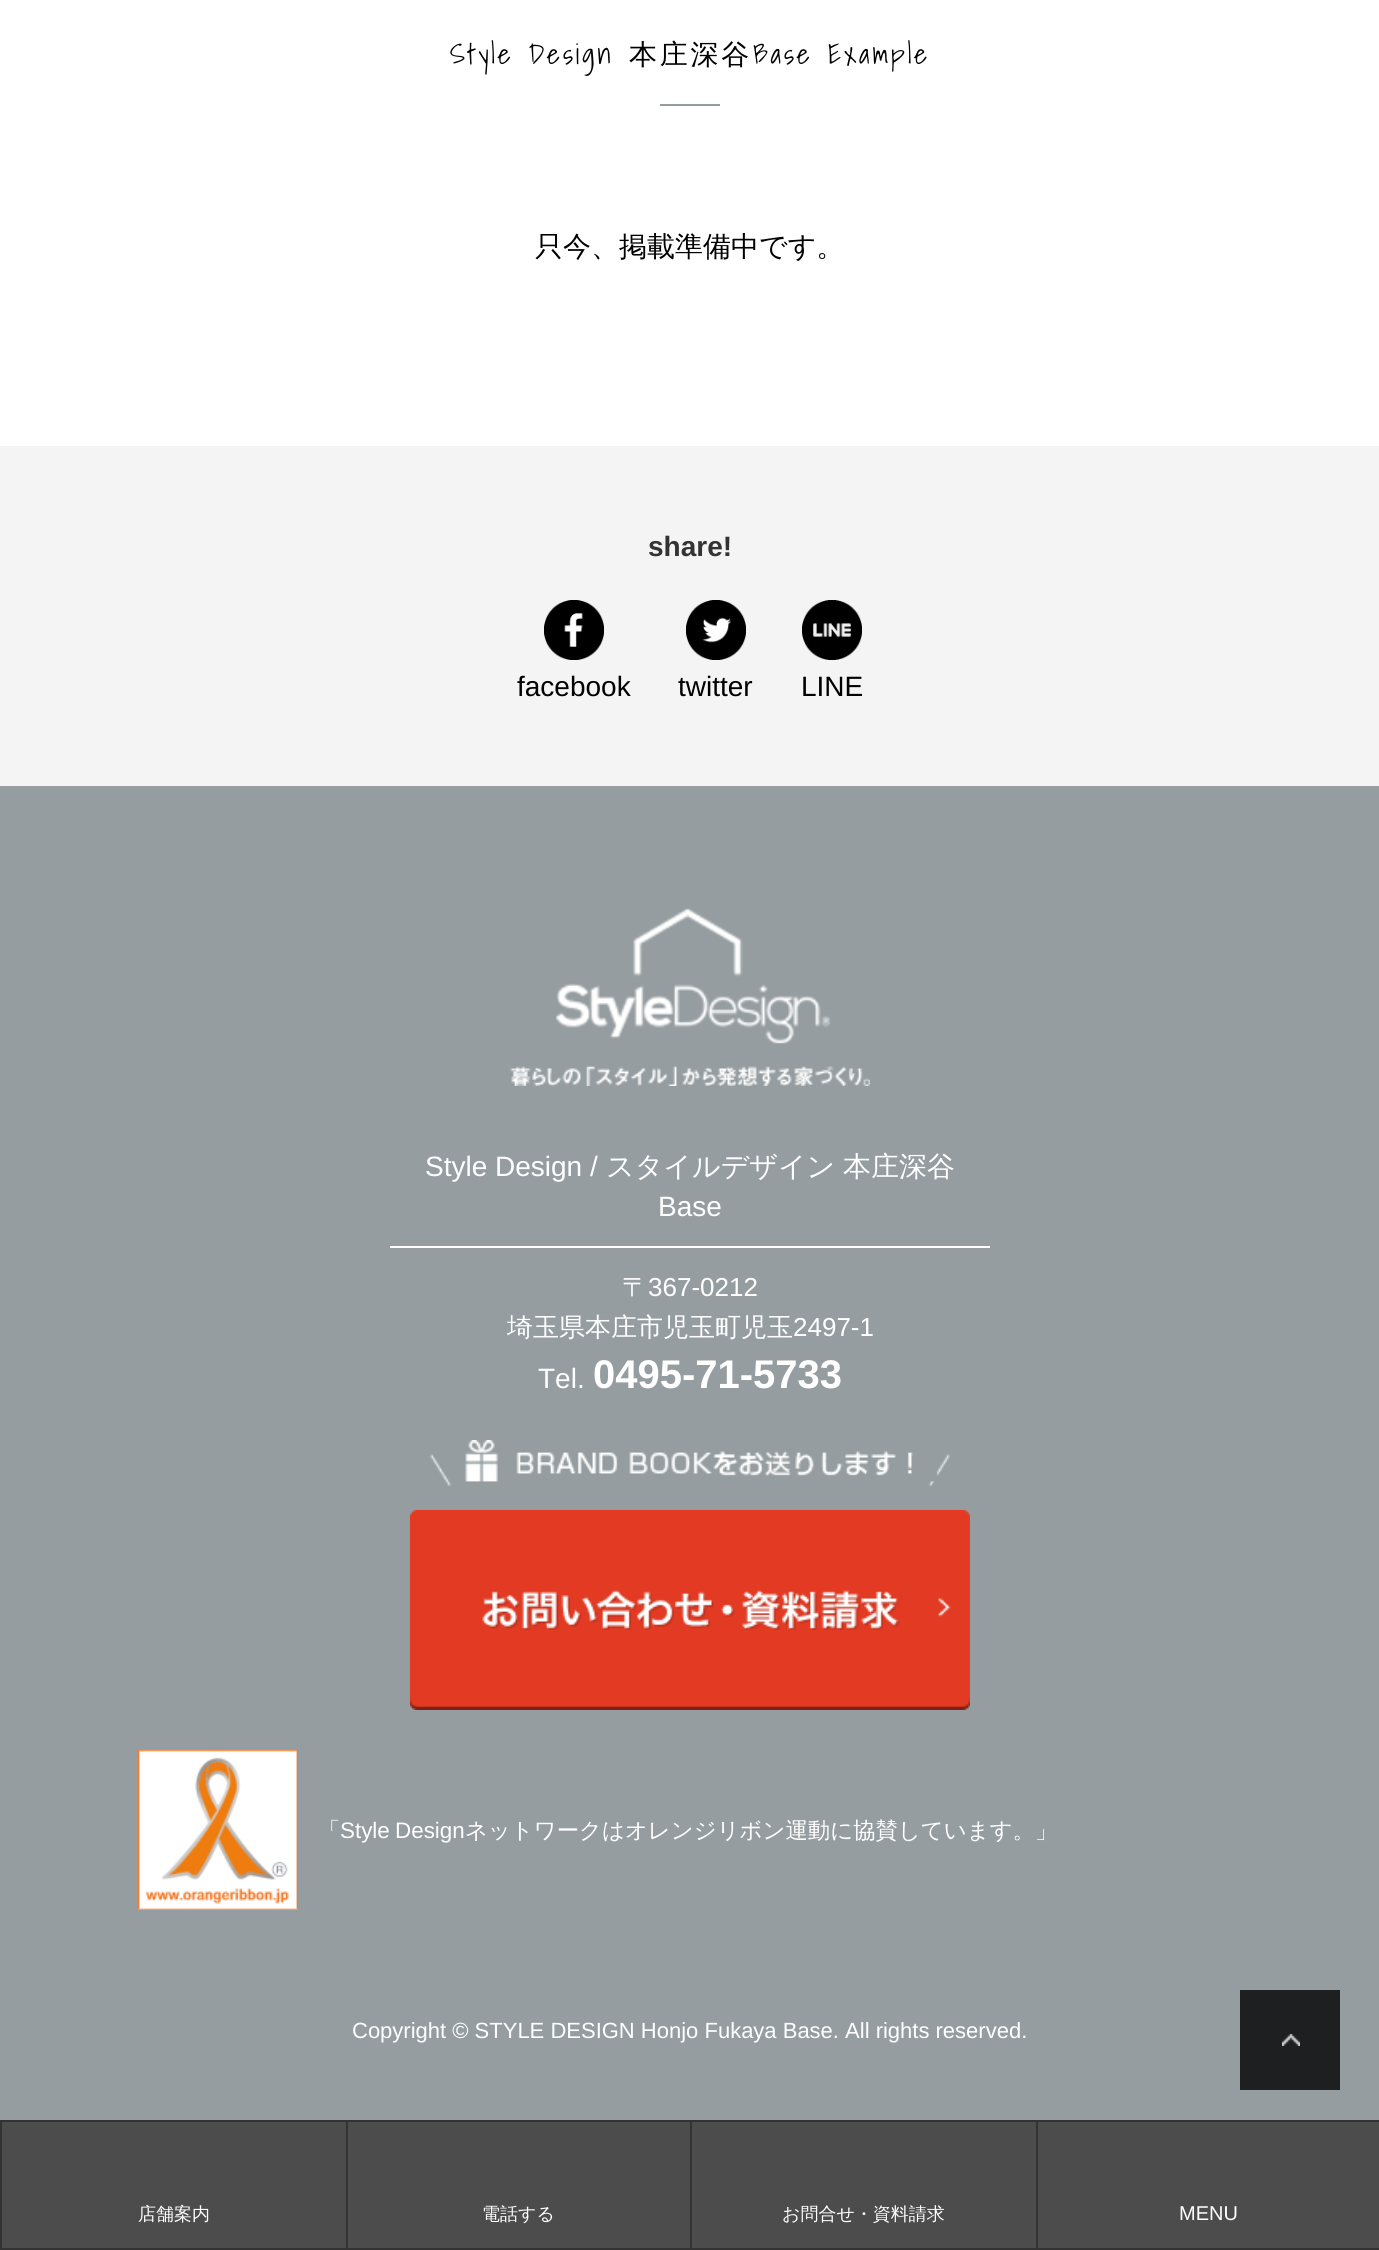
#include <cairo.h>
#include <math.h>
#include <stddef.h>

static cairo_t *ctx;

static void use_color(int r, int g, int b) {
    cairo_set_source_rgb(ctx, r / 255.0, g / 255.0, b / 255.0);
}

static void spaced_text(double x, double y, const char *s, double letter, double word) {
    cairo_move_to(ctx, x, y);
    while (*s) {
        char ch[5] = {0};
        int n = 0;
        do ch[n++] = *s++; while ((*s & 0xC0) == 0x80);
        cairo_show_text(ctx, ch);
        cairo_rel_move_to(ctx, letter + word * (*ch == ' '), 0);
    }
}

static void picture(const char *path, double x, double y, double w, double h) {
    cairo_surface_t *image = cairo_image_surface_create_from_png(path);
    cairo_save(ctx);
    cairo_set_source_surface(ctx, image, x, y);
    cairo_rectangle(ctx, x, y, w, h);
    cairo_fill(ctx);
    cairo_restore(ctx);
    cairo_surface_destroy(image);
}

int main(void) {
    cairo_surface_t *surface = cairo_image_surface_create(CAIRO_FORMAT_RGB24, 1379, 2250);
    ctx = cairo_create(surface);
    cairo_font_options_t *options = cairo_font_options_create();
    cairo_font_options_set_hint_metrics(options, CAIRO_HINT_METRICS_OFF);
    cairo_font_options_set_hint_style(options, CAIRO_HINT_STYLE_NONE);
    cairo_set_font_options(ctx, options);
    cairo_set_miter_limit(ctx, 4);
    use_color(255, 255, 255);
    cairo_paint(ctx);
    use_color(150, 157, 160);
    cairo_rectangle(ctx, 660, 104, 60, 2);
    cairo_fill(ctx);
    cairo_select_font_face(ctx, "Shadows Into Light Light", CAIRO_FONT_SLANT_NORMAL, CAIRO_FONT_WEIGHT_NORMAL);
    cairo_set_font_size(ctx, 28);
    use_color(0, 0, 0);
    spaced_text(450, 64, "Style Design", 2.75, 0);
    cairo_select_font_face(ctx, "WenQuanYi Zen Hei Medium", CAIRO_FONT_SLANT_NORMAL, CAIRO_FONT_WEIGHT_NORMAL);
    spaced_text(629, 64, "本庄深谷", 2.75, 0);
    cairo_select_font_face(ctx, "Shadows Into Light Light", CAIRO_FONT_SLANT_NORMAL, CAIRO_FONT_WEIGHT_NORMAL);
    spaced_text(753, 64, "Base Example", 2.75, 0);
    cairo_select_font_face(ctx, "WenQuanYi Zen Hei Medium", CAIRO_FONT_SLANT_NORMAL, CAIRO_FONT_WEIGHT_NORMAL);
    cairo_move_to(ctx, 535, 256);
    cairo_show_text(ctx, "只今、掲載準備中です。");
    use_color(244, 244, 245);
    cairo_rectangle(ctx, 0, 446, 1379, 340);
    cairo_fill(ctx);
    cairo_select_font_face(ctx, "Liberation Sans", CAIRO_FONT_SLANT_NORMAL, CAIRO_FONT_WEIGHT_BOLD);
    use_color(51, 51, 51);
    cairo_move_to(ctx, 648, 556);
    cairo_show_text(ctx, "share!");
    picture("img1.png", 544, 600, 60, 60);
    cairo_select_font_face(ctx, "Liberation Sans", CAIRO_FONT_SLANT_NORMAL, CAIRO_FONT_WEIGHT_NORMAL);
    use_color(0, 0, 0);
    cairo_move_to(ctx, 517, 696);
    cairo_show_text(ctx, "facebook");
    picture("img2.png", 686, 600, 60, 60);
    cairo_move_to(ctx, 678, 696);
    cairo_show_text(ctx, "twitter");
    picture("img3.png", 802, 600, 60, 60);
    cairo_move_to(ctx, 801, 696);
    cairo_show_text(ctx, "LINE");
    use_color(150, 157, 160);
    cairo_rectangle(ctx, 0, 786, 1379, 1334);
    cairo_fill(ctx);
    picture("img4.png", 510, 908, 360, 178);
    use_color(255, 255, 255);
    cairo_rectangle(ctx, 390, 1246, 600, 2);
    cairo_fill(ctx);
    cairo_move_to(ctx, 425, 1176);
    cairo_show_text(ctx, "Style Design /");
    cairo_select_font_face(ctx, "WenQuanYi Zen Hei Medium", CAIRO_FONT_SLANT_NORMAL, CAIRO_FONT_WEIGHT_NORMAL);
    cairo_move_to(ctx, 606, 1176);
    cairo_show_text(ctx, "スタイルデザイン");
    cairo_move_to(ctx, 843, 1176);
    cairo_show_text(ctx, "本庄深谷");
    cairo_select_font_face(ctx, "Liberation Sans", CAIRO_FONT_SLANT_NORMAL, CAIRO_FONT_WEIGHT_NORMAL);
    cairo_move_to(ctx, 658, 1216);
    cairo_show_text(ctx, "Base");
    cairo_select_font_face(ctx, "WenQuanYi Zen Hei Medium", CAIRO_FONT_SLANT_NORMAL, CAIRO_FONT_WEIGHT_NORMAL);
    cairo_set_font_size(ctx, 26);
    cairo_move_to(ctx, 622, 1296);
    cairo_show_text(ctx, "〒");
    cairo_select_font_face(ctx, "Liberation Sans", CAIRO_FONT_SLANT_NORMAL, CAIRO_FONT_WEIGHT_NORMAL);
    cairo_move_to(ctx, 648, 1296);
    cairo_show_text(ctx, "367-0212");
    cairo_select_font_face(ctx, "WenQuanYi Zen Hei Medium", CAIRO_FONT_SLANT_NORMAL, CAIRO_FONT_WEIGHT_NORMAL);
    cairo_move_to(ctx, 507, 1336);
    cairo_show_text(ctx, "埼玉県本庄市児玉町児玉");
    cairo_select_font_face(ctx, "Liberation Sans", CAIRO_FONT_SLANT_NORMAL, CAIRO_FONT_WEIGHT_NORMAL);
    cairo_move_to(ctx, 793, 1336);
    cairo_show_text(ctx, "2497-1");
    cairo_set_font_size(ctx, 28);
    cairo_move_to(ctx, 538, 1388);
    cairo_show_text(ctx, "Tel.");
    cairo_select_font_face(ctx, "Liberation Sans", CAIRO_FONT_SLANT_NORMAL, CAIRO_FONT_WEIGHT_BOLD);
    cairo_set_font_size(ctx, 40);
    cairo_move_to(ctx, 593, 1388);
    cairo_show_text(ctx, "0495-71-5733");
    picture("img5.png", 430, 1440, 520, 46);
    picture("img6.png", 410, 1510, 560, 200);
    picture("img7.png", 138, 1750, 160, 160);
    cairo_select_font_face(ctx, "WenQuanYi Zen Hei Medium", CAIRO_FONT_SLANT_NORMAL, CAIRO_FONT_WEIGHT_NORMAL);
    cairo_set_font_size(ctx, 22.4);
    cairo_move_to(ctx, 318, 1838);
    cairo_show_text(ctx, "「");
    cairo_select_font_face(ctx, "Liberation Sans", CAIRO_FONT_SLANT_NORMAL, CAIRO_FONT_WEIGHT_NORMAL);
    spaced_text(340, 1838, "Style Design", 0, -1);
    cairo_select_font_face(ctx, "WenQuanYi Zen Hei Medium", CAIRO_FONT_SLANT_NORMAL, CAIRO_FONT_WEIGHT_NORMAL);
    cairo_move_to(ctx, 465, 1838);
    cairo_show_text(ctx, "ネットワークはオレンジリボン運動に協賛しています。」");
    cairo_select_font_face(ctx, "Liberation Sans", CAIRO_FONT_SLANT_NORMAL, CAIRO_FONT_WEIGHT_NORMAL);
    cairo_set_font_size(ctx, 22);
    cairo_move_to(ctx, 352, 2038);
    cairo_show_text(ctx, "Copyright © STYLE DESIGN Honjo Fukaya Base. All rights reserved.");
    use_color(30, 31, 32);
    cairo_rectangle(ctx, 1240, 1990, 100, 100);
    cairo_fill(ctx);
    picture("img8.png", 1282, 2034, 18, 12);
    use_color(76, 76, 76);
    cairo_rectangle(ctx, 2, 2122, 1377, 126);
    cairo_fill(ctx);
    use_color(51, 51, 51);
    cairo_rectangle(ctx, 0, 2120, 1379, 2);
    cairo_fill(ctx);
    cairo_rectangle(ctx, 0, 2248, 1379, 2);
    cairo_fill(ctx);
    cairo_rectangle(ctx, 0, 2120, 2, 130);
    cairo_fill(ctx);
    cairo_select_font_face(ctx, "WenQuanYi Zen Hei Medium", CAIRO_FONT_SLANT_NORMAL, CAIRO_FONT_WEIGHT_NORMAL);
    cairo_set_font_size(ctx, 18);
    use_color(255, 255, 255);
    cairo_move_to(ctx, 138, 2220);
    cairo_show_text(ctx, "店舗案内");
    use_color(51, 51, 51);
    cairo_rectangle(ctx, 346, 2120, 2, 130);
    cairo_fill(ctx);
    use_color(255, 255, 255);
    cairo_move_to(ctx, 482, 2220);
    cairo_show_text(ctx, "電話する");
    use_color(51, 51, 51);
    cairo_rectangle(ctx, 690, 2120, 2, 130);
    cairo_fill(ctx);
    use_color(255, 255, 255);
    cairo_move_to(ctx, 782, 2220);
    cairo_show_text(ctx, "お問合せ・資料請求");
    use_color(51, 51, 51);
    cairo_rectangle(ctx, 1036, 2120, 2, 130);
    cairo_fill(ctx);
    cairo_select_font_face(ctx, "Liberation Sans", CAIRO_FONT_SLANT_NORMAL, CAIRO_FONT_WEIGHT_NORMAL);
    cairo_set_font_size(ctx, 20);
    use_color(255, 255, 255);
    cairo_move_to(ctx, 1179, 2220);
    cairo_show_text(ctx, "MENU");
    cairo_surface_write_to_png(surface, "result.png");
    cairo_font_options_destroy(options);
    cairo_destroy(ctx);
    cairo_surface_destroy(surface);
    return 0;
}
